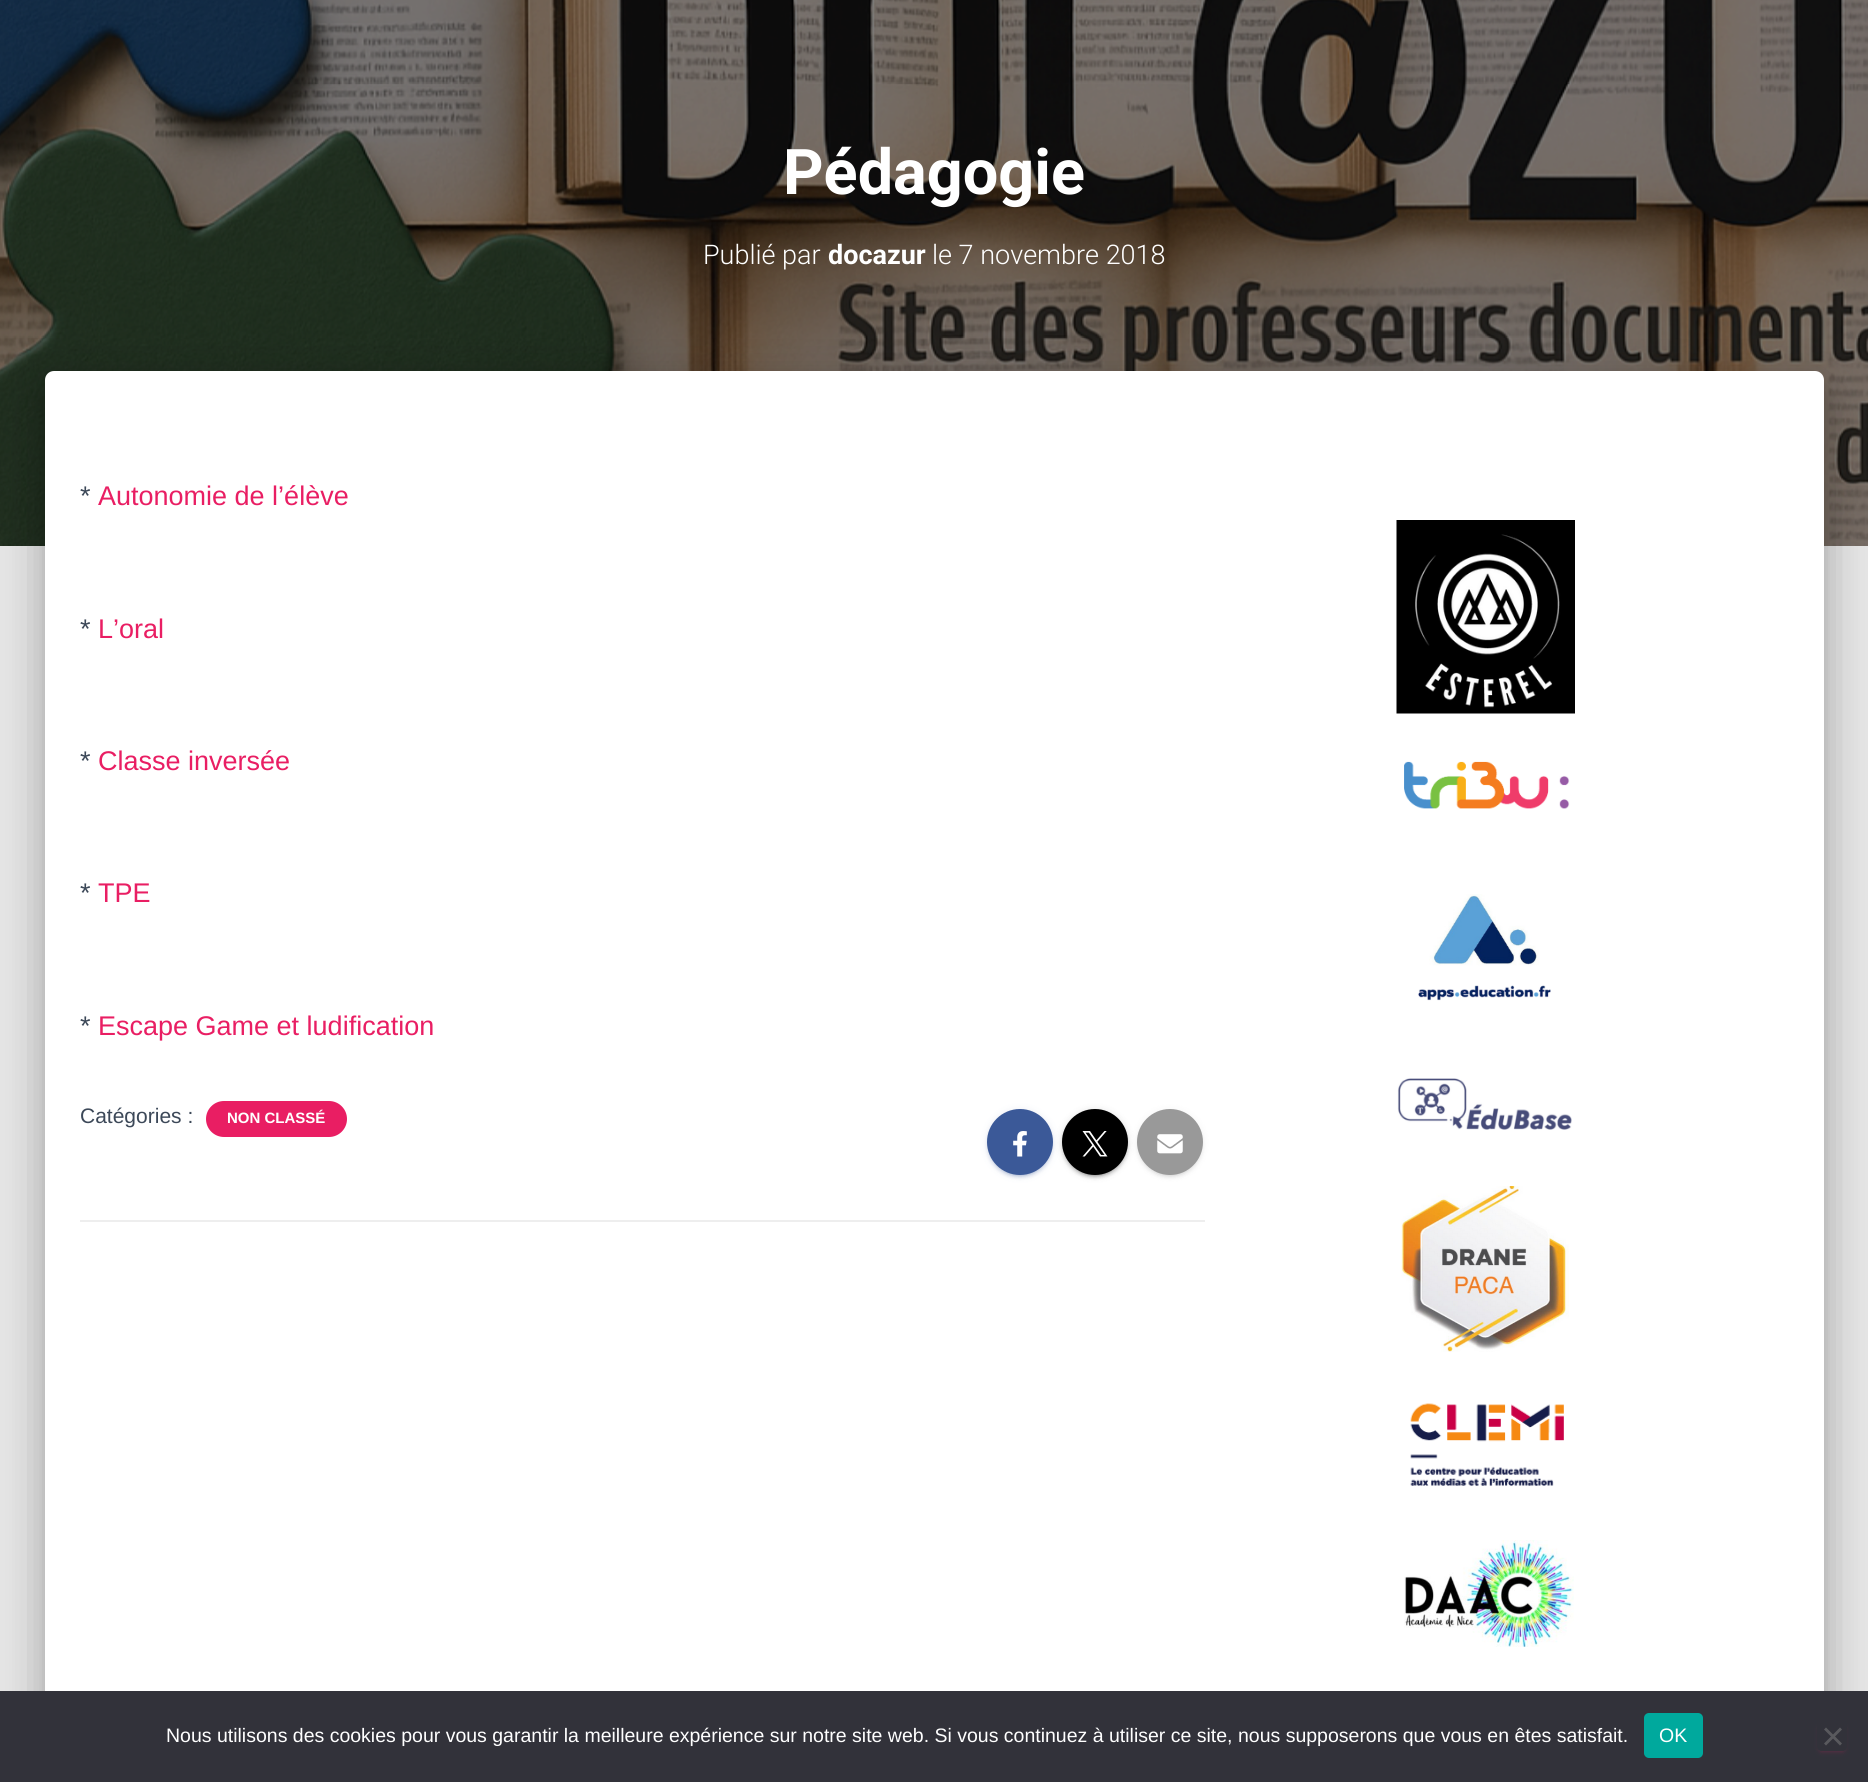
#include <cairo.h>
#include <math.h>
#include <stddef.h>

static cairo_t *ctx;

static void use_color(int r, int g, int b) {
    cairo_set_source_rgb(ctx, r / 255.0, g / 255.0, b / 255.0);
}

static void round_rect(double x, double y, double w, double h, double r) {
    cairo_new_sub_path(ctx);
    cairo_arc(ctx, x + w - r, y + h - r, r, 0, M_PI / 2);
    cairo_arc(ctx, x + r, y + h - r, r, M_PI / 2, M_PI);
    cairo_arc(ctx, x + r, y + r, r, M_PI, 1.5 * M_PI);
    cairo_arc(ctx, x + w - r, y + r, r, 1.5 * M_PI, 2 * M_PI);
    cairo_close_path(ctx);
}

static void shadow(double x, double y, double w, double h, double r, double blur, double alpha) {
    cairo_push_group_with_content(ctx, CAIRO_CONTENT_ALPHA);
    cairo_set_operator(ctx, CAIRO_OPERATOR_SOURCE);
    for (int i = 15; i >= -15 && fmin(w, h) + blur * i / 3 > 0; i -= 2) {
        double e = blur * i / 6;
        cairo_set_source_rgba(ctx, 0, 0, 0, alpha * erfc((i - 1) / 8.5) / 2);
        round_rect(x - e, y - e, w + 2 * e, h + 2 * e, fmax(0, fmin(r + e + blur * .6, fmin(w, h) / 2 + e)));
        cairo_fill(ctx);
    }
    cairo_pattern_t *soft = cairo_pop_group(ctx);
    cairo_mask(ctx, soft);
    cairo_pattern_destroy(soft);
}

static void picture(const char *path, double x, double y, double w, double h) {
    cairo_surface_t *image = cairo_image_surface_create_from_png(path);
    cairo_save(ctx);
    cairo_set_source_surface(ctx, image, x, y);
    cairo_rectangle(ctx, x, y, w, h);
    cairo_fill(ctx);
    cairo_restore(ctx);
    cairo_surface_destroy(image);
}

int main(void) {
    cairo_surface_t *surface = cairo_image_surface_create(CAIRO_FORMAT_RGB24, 1868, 1782);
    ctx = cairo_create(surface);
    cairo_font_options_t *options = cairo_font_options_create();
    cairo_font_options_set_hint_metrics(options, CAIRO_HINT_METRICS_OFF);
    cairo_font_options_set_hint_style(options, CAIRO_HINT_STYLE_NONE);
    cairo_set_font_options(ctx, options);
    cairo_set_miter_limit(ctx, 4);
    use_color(229, 229, 229);
    cairo_paint(ctx);
    picture("img1.png", 0, 0, 1868, 546);
    cairo_select_font_face(ctx, "Roboto", CAIRO_FONT_SLANT_NORMAL, CAIRO_FONT_WEIGHT_BOLD);
    cairo_set_font_size(ctx, 63);
    use_color(255, 255, 255);
    cairo_move_to(ctx, 783, 194);
    cairo_show_text(ctx, "Pédagogie");
    cairo_select_font_face(ctx, "Roboto Light", CAIRO_FONT_SLANT_NORMAL, CAIRO_FONT_WEIGHT_NORMAL);
    cairo_set_font_size(ctx, 27);
    cairo_move_to(ctx, 703, 264);
    cairo_show_text(ctx, "Publié par");
    cairo_select_font_face(ctx, "Roboto", CAIRO_FONT_SLANT_NORMAL, CAIRO_FONT_WEIGHT_BOLD);
    cairo_move_to(ctx, 828, 264);
    cairo_show_text(ctx, "docazur");
    cairo_select_font_face(ctx, "Roboto Light", CAIRO_FONT_SLANT_NORMAL, CAIRO_FONT_WEIGHT_NORMAL);
    cairo_move_to(ctx, 932, 264);
    cairo_show_text(ctx, "le 7 novembre 2018");
    use_color(0, 0, 0);
    shadow(53, 390, 1764, 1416, 1.5, 7.5, 0.2);
    shadow(38, 372, 1794, 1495, 17, 22.5, 0.12);
    shadow(42, 392, 1785, 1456, 12, 18, 0.14);
    use_color(255, 255, 255);
    cairo_new_path(ctx);
    cairo_move_to(ctx, 54, 371);
    cairo_line_to(ctx, 1815, 371);
    cairo_curve_to(ctx, 1820, 371, 1824, 375, 1824, 380);
    cairo_line_to(ctx, 1824, 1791);
    cairo_line_to(ctx, 45, 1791);
    cairo_line_to(ctx, 45, 380);
    cairo_curve_to(ctx, 45, 375, 49, 371, 54, 371);
    cairo_close_path(ctx);
    cairo_fill(ctx);
    cairo_select_font_face(ctx, "Liberation Sans", CAIRO_FONT_SLANT_NORMAL, CAIRO_FONT_WEIGHT_NORMAL);
    use_color(60, 72, 88);
    cairo_move_to(ctx, 80, 505);
    cairo_show_text(ctx, "*");
    use_color(233, 30, 99);
    cairo_move_to(ctx, 98, 505);
    cairo_show_text(ctx, "Autonomie de l’élève");
    use_color(60, 72, 88);
    cairo_move_to(ctx, 80, 638);
    cairo_show_text(ctx, "*");
    use_color(233, 30, 99);
    cairo_move_to(ctx, 98, 638);
    cairo_show_text(ctx, "L’oral");
    use_color(60, 72, 88);
    cairo_move_to(ctx, 80, 770);
    cairo_show_text(ctx, "*");
    use_color(233, 30, 99);
    cairo_move_to(ctx, 98, 770);
    cairo_show_text(ctx, "Classe inversée");
    use_color(60, 72, 88);
    cairo_move_to(ctx, 80, 902);
    cairo_show_text(ctx, "*");
    use_color(233, 30, 99);
    cairo_move_to(ctx, 98, 902);
    cairo_show_text(ctx, "TPE");
    use_color(60, 72, 88);
    cairo_move_to(ctx, 80, 1035);
    cairo_show_text(ctx, "*");
    use_color(233, 30, 99);
    cairo_move_to(ctx, 98, 1035);
    cairo_show_text(ctx, "Escape Game et ludification");
    cairo_set_font_size(ctx, 21);
    use_color(60, 72, 88);
    cairo_move_to(ctx, 80, 1123);
    cairo_show_text(ctx, "Catégories :");
    use_color(233, 30, 99);
    round_rect(206, 1101, 141, 36, 18);
    cairo_fill(ctx);
    cairo_select_font_face(ctx, "Liberation Sans", CAIRO_FONT_SLANT_NORMAL, CAIRO_FONT_WEIGHT_BOLD);
    cairo_set_font_size(ctx, 15);
    use_color(255, 255, 255);
    cairo_move_to(ctx, 227, 1123);
    cairo_show_text(ctx, "NON CLASSÉ");
    use_color(59, 89, 152);
    shadow(987, 1110, 66, 66, 33, 4, 0.12);
    shadow(990, 1116, 60, 60, 30, 1, 0.2);
    shadow(987, 1112, 66, 66, 33, 1.5, 0.14);
    use_color(59, 89, 152);
    cairo_arc(ctx, 1020, 1142, 33, 0, 2 * M_PI);
    cairo_fill(ctx);
    picture("img2.png", 1013, 1131, 14, 26);
    use_color(0, 0, 0);
    shadow(1062, 1110, 66, 66, 33, 4, 0.12);
    shadow(1065, 1116, 60, 60, 30, 1, 0.2);
    shadow(1062, 1112, 66, 66, 33, 1.5, 0.14);
    use_color(0, 0, 0);
    cairo_arc(ctx, 1095, 1142, 33, 0, 2 * M_PI);
    cairo_fill(ctx);
    picture("img3.png", 1082, 1131, 26, 26);
    use_color(153, 153, 153);
    shadow(1137, 1110, 66, 66, 33, 4, 0.12);
    shadow(1140, 1116, 60, 60, 30, 1, 0.2);
    shadow(1137, 1112, 66, 66, 33, 1.5, 0.14);
    use_color(153, 153, 153);
    cairo_arc(ctx, 1170, 1142, 33, 0, 2 * M_PI);
    cairo_fill(ctx);
    picture("img4.png", 1157, 1134, 26, 20);
    use_color(238, 238, 238);
    cairo_rectangle(ctx, 80, 1220, 1125, 2);
    cairo_fill(ctx);
    picture("img5.png", 1396, 520, 179, 194);
    picture("img6.png", 1404, 761, 166, 48);
    picture("img7.png", 1418, 894, 133, 107);
    picture("img8.png", 1397, 1078, 175, 52);
    picture("img9.png", 1401, 1186, 168, 166);
    picture("img10.png", 1410, 1403, 154, 83);
    picture("img11.png", 1404, 1540, 170, 107);
    use_color(50, 50, 58);
    cairo_rectangle(ctx, 0, 1691, 1868, 91);
    cairo_fill(ctx);
    cairo_select_font_face(ctx, "Liberation Sans", CAIRO_FONT_SLANT_NORMAL, CAIRO_FONT_WEIGHT_NORMAL);
    cairo_set_font_size(ctx, 19.5);
    use_color(255, 255, 255);
    cairo_move_to(ctx, 166, 1742);
    cairo_show_text(ctx, "Nous utilisons des cookies pour vous garantir la meilleure expérience sur notre site web. Si vous continuez à utiliser ce site, nous supposerons que vous en êtes satisfait.");
    use_color(0, 169, 157);
    round_rect(1644, 1713, 59, 45, 5);
    cairo_fill(ctx);
    use_color(255, 255, 255);
    cairo_move_to(ctx, 1659, 1742);
    cairo_show_text(ctx, "OK");
    cairo_save(ctx);
    cairo_set_fill_rule(ctx, CAIRO_FILL_RULE_EVEN_ODD);
    cairo_new_path(ctx);
    cairo_move_to(ctx, 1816, 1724);
    cairo_line_to(ctx, 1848, 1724);
    cairo_line_to(ctx, 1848, 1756);
    cairo_line_to(ctx, 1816, 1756);
    cairo_close_path(ctx);
    cairo_move_to(ctx, 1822, 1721);
    cairo_line_to(ctx, 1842, 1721);
    cairo_curve_to(ctx, 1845, 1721, 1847, 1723, 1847, 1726);
    cairo_line_to(ctx, 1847, 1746);
    cairo_curve_to(ctx, 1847, 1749, 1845, 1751, 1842, 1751);
    cairo_line_to(ctx, 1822, 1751);
    cairo_curve_to(ctx, 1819, 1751, 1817, 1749, 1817, 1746);
    cairo_line_to(ctx, 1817, 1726);
    cairo_curve_to(ctx, 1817, 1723, 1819, 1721, 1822, 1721);
    cairo_close_path(ctx);
    cairo_clip(ctx);
    use_color(142, 40, 79);
    shadow(1820, 1728, 24, 24, 1.5, 1, 0.2);
    cairo_restore(ctx);
    cairo_save(ctx);
    cairo_set_fill_rule(ctx, CAIRO_FILL_RULE_EVEN_ODD);
    cairo_new_path(ctx);
    cairo_move_to(ctx, 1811, 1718);
    cairo_line_to(ctx, 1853, 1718);
    cairo_line_to(ctx, 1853, 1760);
    cairo_line_to(ctx, 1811, 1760);
    cairo_close_path(ctx);
    cairo_move_to(ctx, 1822, 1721);
    cairo_line_to(ctx, 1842, 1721);
    cairo_curve_to(ctx, 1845, 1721, 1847, 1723, 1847, 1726);
    cairo_line_to(ctx, 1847, 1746);
    cairo_curve_to(ctx, 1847, 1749, 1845, 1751, 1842, 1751);
    cairo_line_to(ctx, 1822, 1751);
    cairo_curve_to(ctx, 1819, 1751, 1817, 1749, 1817, 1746);
    cairo_line_to(ctx, 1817, 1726);
    cairo_curve_to(ctx, 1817, 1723, 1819, 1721, 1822, 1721);
    cairo_close_path(ctx);
    cairo_clip(ctx);
    use_color(142, 40, 79);
    shadow(1817, 1724, 30, 30, 5, 1.5, 0.14);
    cairo_restore(ctx);
    use_color(89, 89, 93);
    cairo_new_path(ctx);
    cairo_move_to(ctx, 1840, 1727.5);
    cairo_line_to(ctx, 1842, 1729.5);
    cairo_line_to(ctx, 1826, 1745.5);
    cairo_line_to(ctx, 1824, 1743.5);
    cairo_close_path(ctx);
    cairo_fill(ctx);
    cairo_new_path(ctx);
    cairo_move_to(ctx, 1824, 1729.5);
    cairo_line_to(ctx, 1826, 1727.5);
    cairo_line_to(ctx, 1842, 1743.5);
    cairo_line_to(ctx, 1840, 1745.5);
    cairo_close_path(ctx);
    cairo_fill(ctx);
    cairo_surface_write_to_png(surface, "result.png");
    cairo_font_options_destroy(options);
    cairo_destroy(ctx);
    cairo_surface_destroy(surface);
    return 0;
}
